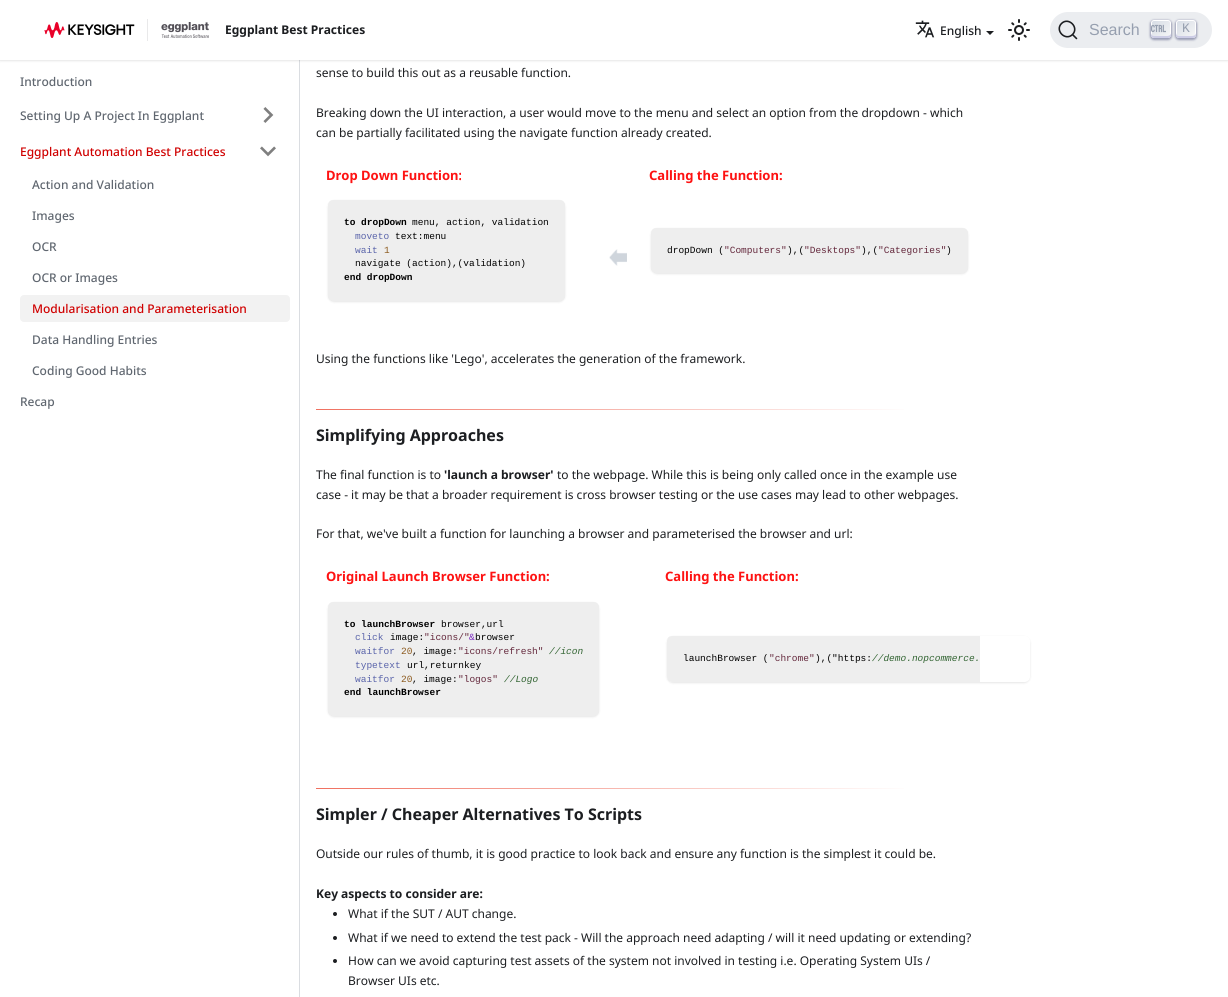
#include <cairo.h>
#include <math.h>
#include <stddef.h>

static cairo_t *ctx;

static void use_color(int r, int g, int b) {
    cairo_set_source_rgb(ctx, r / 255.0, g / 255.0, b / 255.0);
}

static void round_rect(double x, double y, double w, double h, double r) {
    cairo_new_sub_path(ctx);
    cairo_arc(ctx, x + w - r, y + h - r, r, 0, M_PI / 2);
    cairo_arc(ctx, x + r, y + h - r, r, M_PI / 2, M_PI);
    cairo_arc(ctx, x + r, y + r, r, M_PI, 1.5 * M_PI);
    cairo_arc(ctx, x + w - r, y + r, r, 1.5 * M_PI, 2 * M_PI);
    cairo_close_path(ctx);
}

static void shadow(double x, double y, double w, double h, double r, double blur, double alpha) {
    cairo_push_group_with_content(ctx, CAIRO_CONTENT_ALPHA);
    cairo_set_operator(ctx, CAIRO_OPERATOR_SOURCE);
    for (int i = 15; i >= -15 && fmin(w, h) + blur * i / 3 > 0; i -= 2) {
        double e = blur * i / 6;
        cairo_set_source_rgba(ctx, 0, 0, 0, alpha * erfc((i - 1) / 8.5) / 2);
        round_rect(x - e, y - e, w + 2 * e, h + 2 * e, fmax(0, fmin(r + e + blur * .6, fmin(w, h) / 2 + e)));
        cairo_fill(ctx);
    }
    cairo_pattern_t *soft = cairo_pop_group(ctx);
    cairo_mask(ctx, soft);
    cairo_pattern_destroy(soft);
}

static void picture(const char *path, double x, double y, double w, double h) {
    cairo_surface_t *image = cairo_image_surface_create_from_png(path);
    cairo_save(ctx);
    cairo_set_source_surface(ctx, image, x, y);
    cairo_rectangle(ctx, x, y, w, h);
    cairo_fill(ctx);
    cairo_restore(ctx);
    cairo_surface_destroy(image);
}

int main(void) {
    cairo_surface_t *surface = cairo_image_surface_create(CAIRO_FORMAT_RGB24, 1228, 997);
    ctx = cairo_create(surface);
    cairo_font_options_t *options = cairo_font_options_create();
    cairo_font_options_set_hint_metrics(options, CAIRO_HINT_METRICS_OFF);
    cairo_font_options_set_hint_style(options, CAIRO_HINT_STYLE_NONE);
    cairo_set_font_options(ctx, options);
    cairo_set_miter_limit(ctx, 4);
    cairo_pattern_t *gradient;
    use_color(255, 255, 255);
    cairo_paint(ctx);
    use_color(218, 221, 225);
    cairo_rectangle(ctx, 299, 60, 1, 937);
    cairo_fill(ctx);
    use_color(0, 0, 0);
    shadow(0, 1, 1228, 60, 0, 1, 0.1);
    use_color(255, 255, 255);
    cairo_rectangle(ctx, 0, 0, 1228, 60);
    cairo_fill(ctx);
    picture("img1.png", 44, 19, 165, 22);
    cairo_select_font_face(ctx, "Noto Sans", CAIRO_FONT_SLANT_NORMAL, CAIRO_FONT_WEIGHT_BOLD);
    cairo_set_font_size(ctx, 12);
    use_color(28, 30, 33);
    cairo_move_to(ctx, 225, 34);
    cairo_show_text(ctx, "Eggplant Best Practices");
    picture("img2.png", 915, 20, 20, 18);
    cairo_select_font_face(ctx, "Noto Sans Medium", CAIRO_FONT_SLANT_NORMAL, CAIRO_FONT_WEIGHT_NORMAL);
    cairo_move_to(ctx, 940, 35);
    cairo_show_text(ctx, "English");
    cairo_new_path(ctx);
    cairo_move_to(ctx, 986, 31);
    cairo_line_to(ctx, 994, 31);
    cairo_line_to(ctx, 990, 35);
    cairo_close_path(ctx);
    cairo_fill(ctx);
    picture("img3.png", 1008, 19, 22, 22);
    use_color(235, 237, 240);
    round_rect(1050, 12, 162, 36, 18);
    cairo_fill(ctx);
    cairo_new_path(ctx);
    cairo_move_to(ctx, 1072.5, 34.5);
    cairo_line_to(ctx, 1076.5, 38.5);
    cairo_line_to(ctx, 1072.5, 34.5);
    cairo_curve_to(ctx, 1065.5, 41.5, 1054.5, 30.5, 1061.5, 23.5);
    cairo_curve_to(ctx, 1068.5, 16.5, 1079.5, 27.5, 1072.5, 34.5);
    cairo_close_path(ctx);
    use_color(28, 30, 33);
    cairo_set_line_width(ctx, 1.6);
    cairo_set_line_cap(ctx, CAIRO_LINE_CAP_ROUND);
    cairo_set_line_join(ctx, CAIRO_LINE_JOIN_ROUND);
    cairo_stroke(ctx);
    cairo_select_font_face(ctx, "Liberation Sans", CAIRO_FONT_SLANT_NORMAL, CAIRO_FONT_WEIGHT_NORMAL);
    cairo_set_font_size(ctx, 16);
    use_color(150, 159, 175);
    cairo_move_to(ctx, 1089, 35);
    cairo_show_text(ctx, "Search");
    use_color(30, 35, 90);
    shadow(1150, 20, 22, 20, 4, 1, 0.4);
    gradient = cairo_pattern_create_linear(1152, 19, 1171, 39);
    cairo_pattern_add_color_stop_rgba(gradient, 0, 0.835, 0.859, 0.894, 1);
    cairo_pattern_add_color_stop_rgba(gradient, 1, 0.973, 0.973, 0.973, 1);
    cairo_set_source(ctx, gradient);
    cairo_pattern_destroy(gradient);
    round_rect(1151.5, 20.5, 19, 17, 2.5);
    cairo_fill_preserve(ctx);
    use_color(255, 255, 255);
    cairo_set_line_width(ctx, 1);
    cairo_set_line_cap(ctx, CAIRO_LINE_CAP_BUTT);
    cairo_set_line_join(ctx, CAIRO_LINE_JOIN_MITER);
    cairo_stroke(ctx);
    use_color(205, 205, 230);
    cairo_new_path(ctx);
    cairo_move_to(ctx, 1171, 32.5);
    cairo_curve_to(ctx, 1171, 35, 1169.5, 36, 1166, 36);
    cairo_line_to(ctx, 1154, 36);
    cairo_curve_to(ctx, 1152, 36, 1151, 34.5, 1151, 32.5);
    cairo_line_to(ctx, 1151, 35);
    cairo_curve_to(ctx, 1151, 36.5, 1152.5, 38, 1154, 38);
    cairo_line_to(ctx, 1168, 38);
    cairo_curve_to(ctx, 1169.5, 38, 1171, 36.5, 1171, 35);
    cairo_close_path(ctx);
    cairo_fill(ctx);
    picture("img4.png", 1151, 24, 15, 9);
    use_color(30, 35, 90);
    shadow(1175, 20, 22, 20, 4, 1, 0.4);
    gradient = cairo_pattern_create_linear(1177, 19, 1196, 39);
    cairo_pattern_add_color_stop_rgba(gradient, 0, 0.835, 0.859, 0.894, 1);
    cairo_pattern_add_color_stop_rgba(gradient, 1, 0.973, 0.973, 0.973, 1);
    cairo_set_source(ctx, gradient);
    cairo_pattern_destroy(gradient);
    round_rect(1176.5, 20.5, 19, 17, 2.5);
    cairo_fill_preserve(ctx);
    use_color(255, 255, 255);
    cairo_stroke(ctx);
    use_color(205, 205, 230);
    cairo_new_path(ctx);
    cairo_move_to(ctx, 1196, 32.5);
    cairo_curve_to(ctx, 1196, 35, 1194.5, 36, 1191, 36);
    cairo_line_to(ctx, 1179, 36);
    cairo_curve_to(ctx, 1177, 36, 1176, 34.5, 1176, 32.5);
    cairo_line_to(ctx, 1176, 35);
    cairo_curve_to(ctx, 1176, 36.5, 1177.5, 38, 1179, 38);
    cairo_line_to(ctx, 1193, 38);
    cairo_curve_to(ctx, 1194.5, 38, 1196, 36.5, 1196, 35);
    cairo_close_path(ctx);
    cairo_fill(ctx);
    cairo_select_font_face(ctx, "Liberation Mono", CAIRO_FONT_SLANT_NORMAL, CAIRO_FONT_WEIGHT_NORMAL);
    cairo_set_font_size(ctx, 13);
    use_color(150, 159, 175);
    cairo_move_to(ctx, 1182, 32);
    cairo_show_text(ctx, "K");
    cairo_select_font_face(ctx, "Noto Sans Medium", CAIRO_FONT_SLANT_NORMAL, CAIRO_FONT_WEIGHT_NORMAL);
    cairo_set_font_size(ctx, 12);
    use_color(96, 103, 112);
    cairo_move_to(ctx, 20, 86);
    cairo_show_text(ctx, "Introduction");
    cairo_move_to(ctx, 20, 120);
    cairo_show_text(ctx, "Setting Up A Project In Eggplant");
    picture("img5.png", 263, 107, 11, 16);
    use_color(208, 1, 1);
    cairo_move_to(ctx, 20, 156);
    cairo_show_text(ctx, "Eggplant Automation Best Practices");
    picture("img6.png", 260, 146, 16, 11);
    use_color(96, 103, 112);
    cairo_move_to(ctx, 32, 189);
    cairo_show_text(ctx, "Action and Validation");
    cairo_move_to(ctx, 32, 220);
    cairo_show_text(ctx, "Images");
    cairo_move_to(ctx, 32, 251);
    cairo_show_text(ctx, "OCR");
    cairo_move_to(ctx, 32, 282);
    cairo_show_text(ctx, "OCR or Images");
    use_color(242, 242, 242);
    round_rect(20, 295, 270, 27, 4);
    cairo_fill(ctx);
    use_color(208, 1, 1);
    cairo_move_to(ctx, 32, 313);
    cairo_show_text(ctx, "Modularisation and Parameterisation");
    use_color(96, 103, 112);
    cairo_move_to(ctx, 32, 344);
    cairo_show_text(ctx, "Data Handling Entries");
    cairo_move_to(ctx, 32, 375);
    cairo_show_text(ctx, "Coding Good Habits");
    cairo_move_to(ctx, 20, 406);
    cairo_show_text(ctx, "Recap");
    cairo_select_font_face(ctx, "Noto Sans", CAIRO_FONT_SLANT_NORMAL, CAIRO_FONT_WEIGHT_NORMAL);
    use_color(28, 30, 33);
    cairo_move_to(ctx, 316, 77);
    cairo_show_text(ctx, "sense to build this out as a reusable function.");
    cairo_move_to(ctx, 316, 117);
    cairo_show_text(ctx, "Breaking down the UI interaction, a user would move to the menu and select an option from the dropdown - which");
    cairo_move_to(ctx, 316, 137);
    cairo_show_text(ctx, "can be partially facilitated using the navigate function already created.");
    cairo_select_font_face(ctx, "Noto Sans", CAIRO_FONT_SLANT_NORMAL, CAIRO_FONT_WEIGHT_BOLD);
    cairo_set_font_size(ctx, 13);
    use_color(254, 18, 18);
    cairo_move_to(ctx, 326, 180);
    cairo_show_text(ctx, "Drop Down Function:");
    cairo_move_to(ctx, 649, 180);
    cairo_show_text(ctx, "Calling the Function:");
    use_color(0, 0, 0);
    shadow(328, 201, 237, 101, 6, 1, 0.1);
    use_color(238, 238, 238);
    round_rect(328, 200, 237, 101, 5);
    cairo_fill(ctx);
    cairo_select_font_face(ctx, "Liberation Mono", CAIRO_FONT_SLANT_NORMAL, CAIRO_FONT_WEIGHT_BOLD);
    cairo_set_font_size(ctx, 9.5);
    use_color(0, 0, 0);
    cairo_move_to(ctx, 344, 225);
    cairo_show_text(ctx, "to dropDown");
    cairo_select_font_face(ctx, "Liberation Mono", CAIRO_FONT_SLANT_NORMAL, CAIRO_FONT_WEIGHT_NORMAL);
    cairo_move_to(ctx, 412, 225);
    cairo_show_text(ctx, "menu, action, validation");
    use_color(90, 100, 170);
    cairo_move_to(ctx, 355, 239);
    cairo_show_text(ctx, "moveto");
    use_color(0, 0, 0);
    cairo_move_to(ctx, 395, 239);
    cairo_show_text(ctx, "text:menu");
    use_color(90, 100, 170);
    cairo_move_to(ctx, 355, 253);
    cairo_show_text(ctx, "wait");
    use_color(140, 90, 30);
    cairo_move_to(ctx, 384, 253);
    cairo_show_text(ctx, "1");
    use_color(0, 0, 0);
    cairo_move_to(ctx, 355, 266);
    cairo_show_text(ctx, "navigate (action),(validation)");
    cairo_select_font_face(ctx, "Liberation Mono", CAIRO_FONT_SLANT_NORMAL, CAIRO_FONT_WEIGHT_BOLD);
    cairo_move_to(ctx, 344, 280);
    cairo_show_text(ctx, "end dropDown");
    picture("img7.png", 609, 249, 18, 17);
    use_color(0, 0, 0);
    shadow(651, 229, 317, 45, 6, 1, 0.1);
    use_color(238, 238, 238);
    round_rect(651, 228, 317, 45, 5);
    cairo_fill(ctx);
    cairo_select_font_face(ctx, "Liberation Mono", CAIRO_FONT_SLANT_NORMAL, CAIRO_FONT_WEIGHT_NORMAL);
    use_color(0, 0, 0);
    cairo_move_to(ctx, 667, 253);
    cairo_show_text(ctx, "dropDown (");
    use_color(100, 40, 60);
    cairo_move_to(ctx, 724, 253);
    cairo_show_text(ctx, "\"Computers\"");
    use_color(0, 0, 0);
    cairo_move_to(ctx, 787, 253);
    cairo_show_text(ctx, "),(");
    use_color(100, 40, 60);
    cairo_move_to(ctx, 804, 253);
    cairo_show_text(ctx, "\"Desktops\"");
    use_color(0, 0, 0);
    cairo_move_to(ctx, 861, 253);
    cairo_show_text(ctx, "),(");
    use_color(100, 40, 60);
    cairo_move_to(ctx, 878, 253);
    cairo_show_text(ctx, "\"Categories\"");
    use_color(0, 0, 0);
    cairo_move_to(ctx, 946, 253);
    cairo_show_text(ctx, ")");
    cairo_select_font_face(ctx, "Noto Sans", CAIRO_FONT_SLANT_NORMAL, CAIRO_FONT_WEIGHT_NORMAL);
    cairo_set_font_size(ctx, 12);
    use_color(28, 30, 33);
    cairo_move_to(ctx, 316, 363);
    cairo_show_text(ctx, "Using the functions like 'Lego', accelerates the generation of the framework.");
    gradient = cairo_pattern_create_linear(316, 410, 980, 410);
    cairo_pattern_add_color_stop_rgba(gradient, 0, 0.941, 0.439, 0.376, 1);
    cairo_pattern_add_color_stop_rgba(gradient, 0.02, 0.941, 0.451, 0.388, 1);
    cairo_pattern_add_color_stop_rgba(gradient, 0.9, 1, 1, 1, 1);
    cairo_set_source(ctx, gradient);
    cairo_pattern_destroy(gradient);
    cairo_rectangle(ctx, 316, 409, 588, 1);
    cairo_fill(ctx);
    cairo_select_font_face(ctx, "Noto Sans", CAIRO_FONT_SLANT_NORMAL, CAIRO_FONT_WEIGHT_BOLD);
    cairo_set_font_size(ctx, 16);
    use_color(28, 30, 33);
    cairo_move_to(ctx, 316, 441);
    cairo_show_text(ctx, "Simplifying Approaches");
    cairo_select_font_face(ctx, "Noto Sans", CAIRO_FONT_SLANT_NORMAL, CAIRO_FONT_WEIGHT_NORMAL);
    cairo_set_font_size(ctx, 12);
    cairo_move_to(ctx, 316, 479);
    cairo_show_text(ctx, "The final function is to");
    cairo_select_font_face(ctx, "Noto Sans", CAIRO_FONT_SLANT_NORMAL, CAIRO_FONT_WEIGHT_BOLD);
    cairo_move_to(ctx, 444, 479);
    cairo_show_text(ctx, "'launch a browser'");
    cairo_select_font_face(ctx, "Noto Sans", CAIRO_FONT_SLANT_NORMAL, CAIRO_FONT_WEIGHT_NORMAL);
    cairo_move_to(ctx, 557, 479);
    cairo_show_text(ctx, "to the webpage. While this is being only called once in the example use");
    cairo_move_to(ctx, 316, 499);
    cairo_show_text(ctx, "case - it may be that a broader requirement is cross browser testing or the use cases may lead to other webpages.");
    cairo_move_to(ctx, 316, 538);
    cairo_show_text(ctx, "For that, we've built a function for launching a browser and parameterised the browser and url:");
    cairo_select_font_face(ctx, "Noto Sans", CAIRO_FONT_SLANT_NORMAL, CAIRO_FONT_WEIGHT_BOLD);
    cairo_set_font_size(ctx, 13);
    use_color(254, 18, 18);
    cairo_move_to(ctx, 326, 581);
    cairo_show_text(ctx, "Original Launch Browser Function:");
    cairo_move_to(ctx, 665, 581);
    cairo_show_text(ctx, "Calling the Function:");
    use_color(0, 0, 0);
    shadow(328, 603, 271, 114, 6, 1, 0.1);
    use_color(238, 238, 238);
    round_rect(328, 602, 271, 114, 5);
    cairo_fill(ctx);
    cairo_select_font_face(ctx, "Liberation Mono", CAIRO_FONT_SLANT_NORMAL, CAIRO_FONT_WEIGHT_BOLD);
    cairo_set_font_size(ctx, 9.5);
    use_color(0, 0, 0);
    cairo_move_to(ctx, 344, 627);
    cairo_show_text(ctx, "to launchBrowser");
    cairo_select_font_face(ctx, "Liberation Mono", CAIRO_FONT_SLANT_NORMAL, CAIRO_FONT_WEIGHT_NORMAL);
    cairo_move_to(ctx, 441, 627);
    cairo_show_text(ctx, "browser,url");
    use_color(90, 100, 170);
    cairo_move_to(ctx, 355, 640);
    cairo_show_text(ctx, "click");
    use_color(0, 0, 0);
    cairo_move_to(ctx, 390, 640);
    cairo_show_text(ctx, "image:");
    use_color(100, 40, 60);
    cairo_move_to(ctx, 424, 640);
    cairo_show_text(ctx, "\"icons/\"");
    use_color(120, 40, 190);
    cairo_move_to(ctx, 469, 640);
    cairo_show_text(ctx, "&");
    use_color(0, 0, 0);
    cairo_move_to(ctx, 475, 640);
    cairo_show_text(ctx, "browser");
    use_color(90, 100, 170);
    cairo_move_to(ctx, 355, 654);
    cairo_show_text(ctx, "waitfor");
    use_color(140, 90, 30);
    cairo_move_to(ctx, 401, 654);
    cairo_show_text(ctx, "20");
    use_color(0, 0, 0);
    cairo_move_to(ctx, 412, 654);
    cairo_show_text(ctx, ", image:");
    use_color(100, 40, 60);
    cairo_move_to(ctx, 458, 654);
    cairo_show_text(ctx, "\"icons/refresh\"");
    cairo_select_font_face(ctx, "Liberation Mono", CAIRO_FONT_SLANT_ITALIC, CAIRO_FONT_WEIGHT_NORMAL);
    use_color(50, 100, 50);
    cairo_move_to(ctx, 549, 654);
    cairo_show_text(ctx, "//icon");
    cairo_select_font_face(ctx, "Liberation Mono", CAIRO_FONT_SLANT_NORMAL, CAIRO_FONT_WEIGHT_NORMAL);
    use_color(90, 100, 170);
    cairo_move_to(ctx, 355, 668);
    cairo_show_text(ctx, "typetext");
    use_color(0, 0, 0);
    cairo_move_to(ctx, 407, 668);
    cairo_show_text(ctx, "url,returnkey");
    use_color(90, 100, 170);
    cairo_move_to(ctx, 355, 682);
    cairo_show_text(ctx, "waitfor");
    use_color(140, 90, 30);
    cairo_move_to(ctx, 401, 682);
    cairo_show_text(ctx, "20");
    use_color(0, 0, 0);
    cairo_move_to(ctx, 412, 682);
    cairo_show_text(ctx, ", image:");
    use_color(100, 40, 60);
    cairo_move_to(ctx, 458, 682);
    cairo_show_text(ctx, "\"logos\"");
    cairo_select_font_face(ctx, "Liberation Mono", CAIRO_FONT_SLANT_ITALIC, CAIRO_FONT_WEIGHT_NORMAL);
    use_color(50, 100, 50);
    cairo_move_to(ctx, 504, 682);
    cairo_show_text(ctx, "//Logo");
    cairo_select_font_face(ctx, "Liberation Mono", CAIRO_FONT_SLANT_NORMAL, CAIRO_FONT_WEIGHT_BOLD);
    use_color(0, 0, 0);
    cairo_move_to(ctx, 344, 695);
    cairo_show_text(ctx, "end launchBrowser");
    cairo_save(ctx);
    cairo_set_fill_rule(ctx, CAIRO_FILL_RULE_EVEN_ODD);
    cairo_new_path(ctx);
    cairo_move_to(ctx, 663, 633);
    cairo_line_to(ctx, 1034, 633);
    cairo_line_to(ctx, 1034, 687);
    cairo_line_to(ctx, 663, 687);
    cairo_close_path(ctx);
    cairo_move_to(ctx, 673, 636);
    cairo_line_to(ctx, 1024, 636);
    cairo_curve_to(ctx, 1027.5, 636, 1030, 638.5, 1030, 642);
    cairo_line_to(ctx, 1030, 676);
    cairo_curve_to(ctx, 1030, 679.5, 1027.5, 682, 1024, 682);
    cairo_line_to(ctx, 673, 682);
    cairo_curve_to(ctx, 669.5, 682, 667, 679.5, 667, 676);
    cairo_line_to(ctx, 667, 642);
    cairo_curve_to(ctx, 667, 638.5, 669.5, 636, 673, 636);
    cairo_close_path(ctx);
    cairo_clip(ctx);
    use_color(0, 0, 0);
    shadow(667, 637, 363, 46, 6, 1, 0.1);
    cairo_restore(ctx);
    use_color(238, 238, 238);
    cairo_new_path(ctx);
    cairo_move_to(ctx, 672, 636);
    cairo_line_to(ctx, 980, 636);
    cairo_line_to(ctx, 980, 682);
    cairo_line_to(ctx, 672, 682);
    cairo_curve_to(ctx, 669, 682, 667, 680, 667, 677);
    cairo_line_to(ctx, 667, 641);
    cairo_curve_to(ctx, 667, 638, 669, 636, 672, 636);
    cairo_close_path(ctx);
    cairo_fill(ctx);
    cairo_select_font_face(ctx, "Liberation Mono", CAIRO_FONT_SLANT_NORMAL, CAIRO_FONT_WEIGHT_NORMAL);
    use_color(0, 0, 0);
    cairo_move_to(ctx, 683, 661);
    cairo_show_text(ctx, "launchBrowser (");
    use_color(100, 40, 60);
    cairo_move_to(ctx, 769, 661);
    cairo_show_text(ctx, "\"chrome\"");
    use_color(0, 0, 0);
    cairo_move_to(ctx, 815, 661);
    cairo_show_text(ctx, "),(\"https:");
    cairo_select_font_face(ctx, "Liberation Mono", CAIRO_FONT_SLANT_ITALIC, CAIRO_FONT_WEIGHT_NORMAL);
    use_color(50, 100, 50);
    cairo_move_to(ctx, 872, 661);
    cairo_show_text(ctx, "//demo.nopcommerce.");
    gradient = cairo_pattern_create_linear(316, 789, 980, 789);
    cairo_pattern_add_color_stop_rgba(gradient, 0, 0.941, 0.439, 0.376, 1);
    cairo_pattern_add_color_stop_rgba(gradient, 0.02, 0.941, 0.451, 0.388, 1);
    cairo_pattern_add_color_stop_rgba(gradient, 0.9, 1, 1, 1, 1);
    cairo_set_source(ctx, gradient);
    cairo_pattern_destroy(gradient);
    cairo_rectangle(ctx, 316, 788, 588, 1);
    cairo_fill(ctx);
    cairo_select_font_face(ctx, "Noto Sans", CAIRO_FONT_SLANT_NORMAL, CAIRO_FONT_WEIGHT_BOLD);
    cairo_set_font_size(ctx, 16);
    use_color(28, 30, 33);
    cairo_move_to(ctx, 316, 820);
    cairo_show_text(ctx, "Simpler / Cheaper Alternatives To Scripts");
    cairo_select_font_face(ctx, "Noto Sans", CAIRO_FONT_SLANT_NORMAL, CAIRO_FONT_WEIGHT_NORMAL);
    cairo_set_font_size(ctx, 12);
    cairo_move_to(ctx, 316, 858);
    cairo_show_text(ctx, "Outside our rules of thumb, it is good practice to look back and ensure any function is the simplest it could be.");
    cairo_select_font_face(ctx, "Noto Sans", CAIRO_FONT_SLANT_NORMAL, CAIRO_FONT_WEIGHT_BOLD);
    cairo_move_to(ctx, 316, 898);
    cairo_show_text(ctx, "Key aspects to consider are:");
    cairo_new_path(ctx);
    cairo_arc(ctx, 335, 914, 2, 0, 2 * M_PI);
    cairo_fill(ctx);
    cairo_select_font_face(ctx, "Noto Sans", CAIRO_FONT_SLANT_NORMAL, CAIRO_FONT_WEIGHT_NORMAL);
    cairo_move_to(ctx, 348, 918);
    cairo_show_text(ctx, "What if the SUT / AUT change.");
    cairo_new_path(ctx);
    cairo_arc(ctx, 335, 938, 2, 0, 2 * M_PI);
    cairo_fill(ctx);
    cairo_move_to(ctx, 348, 942);
    cairo_show_text(ctx, "What if we need to extend the test pack - Will the approach need adapting / will it need updating or extending?");
    cairo_new_path(ctx);
    cairo_arc(ctx, 335, 961, 2, 0, 2 * M_PI);
    cairo_fill(ctx);
    cairo_move_to(ctx, 348, 965);
    cairo_show_text(ctx, "How can we avoid capturing test assets of the system not involved in testing i.e. Operating System UIs /");
    cairo_move_to(ctx, 348, 985);
    cairo_show_text(ctx, "Browser UIs etc.");
    cairo_surface_write_to_png(surface, "result.png");
    cairo_font_options_destroy(options);
    cairo_destroy(ctx);
    cairo_surface_destroy(surface);
    return 0;
}
